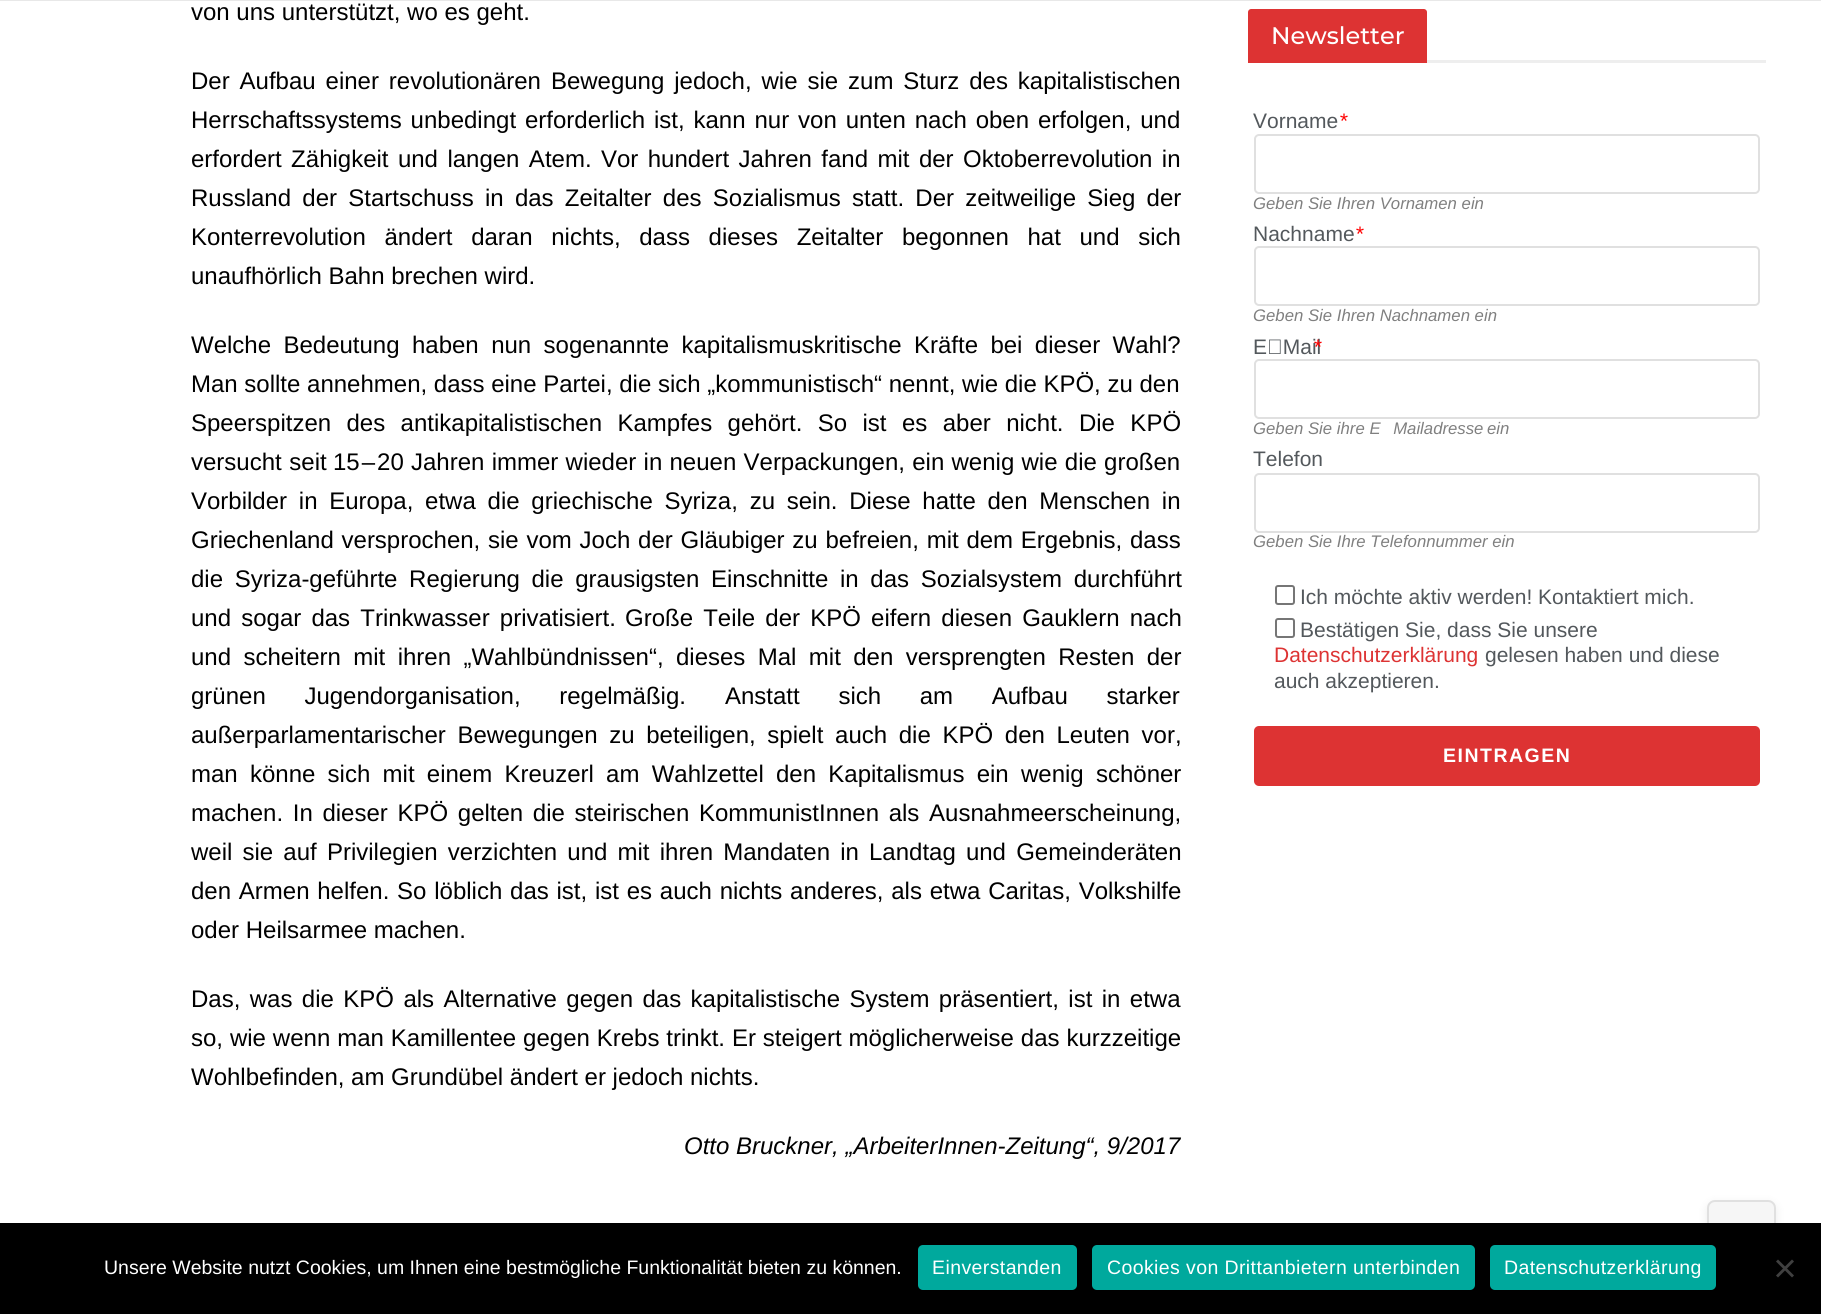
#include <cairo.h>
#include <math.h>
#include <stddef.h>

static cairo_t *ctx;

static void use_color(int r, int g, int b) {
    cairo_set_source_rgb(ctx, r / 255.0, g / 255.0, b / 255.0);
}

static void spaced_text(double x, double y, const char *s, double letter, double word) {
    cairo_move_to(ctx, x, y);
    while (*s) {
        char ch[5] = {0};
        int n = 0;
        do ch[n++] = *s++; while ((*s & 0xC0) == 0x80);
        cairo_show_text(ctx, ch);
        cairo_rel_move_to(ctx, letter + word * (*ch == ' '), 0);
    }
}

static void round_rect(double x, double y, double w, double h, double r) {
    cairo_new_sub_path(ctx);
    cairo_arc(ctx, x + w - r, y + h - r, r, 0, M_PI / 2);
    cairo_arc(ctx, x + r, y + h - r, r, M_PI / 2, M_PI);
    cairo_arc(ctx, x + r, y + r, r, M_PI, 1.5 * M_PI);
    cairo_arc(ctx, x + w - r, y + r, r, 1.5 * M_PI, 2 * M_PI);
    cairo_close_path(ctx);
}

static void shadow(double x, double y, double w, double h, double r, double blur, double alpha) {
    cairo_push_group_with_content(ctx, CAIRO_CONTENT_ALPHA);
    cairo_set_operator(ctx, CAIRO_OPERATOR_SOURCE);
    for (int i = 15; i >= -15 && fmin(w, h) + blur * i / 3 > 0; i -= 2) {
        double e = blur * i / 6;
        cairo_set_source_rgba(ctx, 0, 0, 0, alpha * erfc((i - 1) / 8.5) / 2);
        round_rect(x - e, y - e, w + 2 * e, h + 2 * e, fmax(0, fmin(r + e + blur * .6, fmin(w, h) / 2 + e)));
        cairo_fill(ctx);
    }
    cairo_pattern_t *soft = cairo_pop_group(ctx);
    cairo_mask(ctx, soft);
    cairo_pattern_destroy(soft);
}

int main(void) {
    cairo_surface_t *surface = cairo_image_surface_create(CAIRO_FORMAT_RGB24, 1821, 1314);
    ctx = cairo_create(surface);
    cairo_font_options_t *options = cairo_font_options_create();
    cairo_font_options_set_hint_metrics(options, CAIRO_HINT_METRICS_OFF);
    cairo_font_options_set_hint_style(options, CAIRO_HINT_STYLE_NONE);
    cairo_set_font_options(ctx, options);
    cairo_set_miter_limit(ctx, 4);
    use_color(255, 255, 255);
    cairo_paint(ctx);
    use_color(232, 232, 232);
    cairo_rectangle(ctx, 0, 0, 1821, 1);
    cairo_fill(ctx);
    cairo_select_font_face(ctx, "Liberation Sans", CAIRO_FONT_SLANT_NORMAL, CAIRO_FONT_WEIGHT_NORMAL);
    cairo_set_font_size(ctx, 24);
    use_color(0, 0, 0);
    cairo_move_to(ctx, 191, 20);
    cairo_show_text(ctx, "von uns unterstützt, wo es geht.");
    spaced_text(191, 89, "Der Aufbau einer revolutionären Bewegung jedoch, wie sie zum Sturz des kapitalistischen", 0, 3.25);
    spaced_text(191, 128, "Herrschaftssystems unbedingt erforderlich ist, kann nur von unten nach oben erfolgen, und", 0, 2.25);
    spaced_text(191, 167, "erfordert Zähigkeit und langen Atem. Vor hundert Jahren fand mit der Oktoberrevolution in", 0, 2.75);
    spaced_text(191, 206, "Russland der Startschuss in das Zeitalter des Sozialismus statt. Der zeitweilige Sieg der", 0, 4.6);
    spaced_text(191, 245, "Konterrevolution ändert daran nichts, dass dieses Zeitalter begonnen hat und sich", 0, 12);
    cairo_move_to(ctx, 191, 284);
    cairo_show_text(ctx, "unaufhörlich Bahn brechen wird.");
    spaced_text(191, 353, "Welche Bedeutung haben nun sogenannte kapitalismuskritische Kräfte bei dieser Wahl?", 0, 5.75);
    cairo_move_to(ctx, 191, 392);
    cairo_show_text(ctx, "Man sollte annehmen, dass eine Partei, die sich „kommunistisch“ nennt, wie die KPÖ, zu den");
    spaced_text(191, 431, "Speerspitzen des antikapitalistischen Kampfes gehört. So ist es aber nicht. Die KPÖ", 0, 8.75);
    spaced_text(191, 470, "versucht seit", 0, 1);
    spaced_text(333, 470, "15 – 20 Jahren immer wieder in neuen Verpackungen, ein wenig wie die großen", 0, 0.6);
    spaced_text(191, 509, "Vorbilder in Europa, etwa die griechische Syriza, zu sein. Diese hatte den Menschen in", 0, 5.1);
    spaced_text(191, 548, "Griechenland versprochen, sie vom Joch der Gläubiger zu befreien, mit dem Ergebnis, dass", 0, 1.1);
    spaced_text(191, 587, "die Syriza-geführte Regierung die grausigsten Einschnitte in das Sozialsystem durchführt", 0, 5);
    spaced_text(191, 626, "und sogar das Trinkwasser privatisiert.", 0, 3.5);
    spaced_text(625, 626, "Große Teile der KPÖ eifern diesen Gauklern nach", 0, 3.5);
    spaced_text(191, 665, "und scheitern mit ihren „Wahlbündnissen“, dieses Mal mit den versprengten Resten der", 0, 5.75);
    spaced_text(191, 704, "grünen Jugendorganisation, regelmäßig.", 0, 32);
    spaced_text(725, 704, "Anstatt sich am Aufbau starker", 0, 32);
    spaced_text(191, 743, "außerparlamentarischer Bewegungen zu beteiligen, spielt auch die KPÖ den Leuten vor,", 0, 5);
    spaced_text(191, 782, "man könne sich mit einem Kreuzerl am Wahlzettel den Kapitalismus ein wenig schöner", 0, 5.6);
    spaced_text(191, 821, "machen. In dieser KPÖ gelten die steirischen KommunistInnen als Ausnahmeerscheinung,", 0, 3);
    spaced_text(191, 860, "weil sie auf Privilegien verzichten und mit ihren Mandaten in Landtag und Gemeinderäten", 0, 3.5);
    spaced_text(191, 899, "den Armen helfen. So löblich das ist, ist es auch nichts anderes, als etwa Caritas, Volkshilfe", 0, 1.1);
    cairo_move_to(ctx, 191, 938);
    cairo_show_text(ctx, "oder Heilsarmee machen.");
    spaced_text(191, 1007, "Das, was die KPÖ als Alternative gegen das kapitalistische System präsentiert, ist in etwa", 0, 2.75);
    spaced_text(191, 1046, "so, wie wenn man Kamillentee gegen Krebs trinkt. Er steigert möglicherweise das kurzzeitige", 0, 0.25);
    cairo_move_to(ctx, 191, 1085);
    cairo_show_text(ctx, "Wohlbefinden, am Grundübel ändert er jedoch nichts.");
    cairo_select_font_face(ctx, "Liberation Sans", CAIRO_FONT_SLANT_ITALIC, CAIRO_FONT_WEIGHT_NORMAL);
    cairo_move_to(ctx, 684, 1154);
    cairo_show_text(ctx, "Otto Bruckner, „ArbeiterInnen-Zeitung“, 9/2017");
    use_color(238, 238, 238);
    cairo_rectangle(ctx, 1427, 60, 339, 3);
    cairo_fill(ctx);
    use_color(221, 51, 51);
    cairo_new_path(ctx);
    cairo_move_to(ctx, 1251, 9);
    cairo_line_to(ctx, 1424, 9);
    cairo_curve_to(ctx, 1425.5, 9, 1427, 10.5, 1427, 12);
    cairo_line_to(ctx, 1427, 63);
    cairo_line_to(ctx, 1248, 63);
    cairo_line_to(ctx, 1248, 12);
    cairo_curve_to(ctx, 1248, 10.5, 1249.5, 9, 1251, 9);
    cairo_close_path(ctx);
    cairo_fill(ctx);
    cairo_select_font_face(ctx, "Montserrat Medium", CAIRO_FONT_SLANT_NORMAL, CAIRO_FONT_WEIGHT_NORMAL);
    use_color(255, 255, 255);
    cairo_move_to(ctx, 1271, 44);
    cairo_show_text(ctx, "Newsletter");
    cairo_select_font_face(ctx, "Liberation Sans", CAIRO_FONT_SLANT_NORMAL, CAIRO_FONT_WEIGHT_NORMAL);
    cairo_set_font_size(ctx, 21);
    use_color(83, 88, 92);
    cairo_move_to(ctx, 1253, 128);
    cairo_show_text(ctx, "Vorname");
    cairo_select_font_face(ctx, "Liberation Sans", CAIRO_FONT_SLANT_ITALIC, CAIRO_FONT_WEIGHT_NORMAL);
    use_color(255, 0, 0);
    cairo_move_to(ctx, 1339, 128);
    cairo_show_text(ctx, "*");
    round_rect(1255, 135, 504, 58, 4);
    use_color(224, 224, 224);
    cairo_stroke(ctx);
    cairo_set_font_size(ctx, 16.75);
    use_color(128, 128, 128);
    cairo_move_to(ctx, 1253, 209);
    cairo_show_text(ctx, "Geben Sie Ihren Vornamen ein");
    cairo_select_font_face(ctx, "Liberation Sans", CAIRO_FONT_SLANT_NORMAL, CAIRO_FONT_WEIGHT_NORMAL);
    cairo_set_font_size(ctx, 21);
    use_color(83, 88, 92);
    cairo_move_to(ctx, 1253, 241);
    cairo_show_text(ctx, "Nachname");
    cairo_select_font_face(ctx, "Liberation Sans", CAIRO_FONT_SLANT_ITALIC, CAIRO_FONT_WEIGHT_NORMAL);
    use_color(255, 0, 0);
    cairo_move_to(ctx, 1355, 241);
    cairo_show_text(ctx, "*");
    round_rect(1255, 247, 504, 58, 4);
    use_color(224, 224, 224);
    cairo_stroke(ctx);
    cairo_set_font_size(ctx, 16.75);
    use_color(128, 128, 128);
    cairo_move_to(ctx, 1253, 321);
    cairo_show_text(ctx, "Geben Sie Ihren Nachnamen ein");
    cairo_select_font_face(ctx, "Liberation Sans", CAIRO_FONT_SLANT_NORMAL, CAIRO_FONT_WEIGHT_NORMAL);
    cairo_set_font_size(ctx, 21);
    use_color(83, 88, 92);
    cairo_move_to(ctx, 1253, 354);
    cairo_show_text(ctx, "E‑Mail");
    cairo_select_font_face(ctx, "Liberation Sans", CAIRO_FONT_SLANT_ITALIC, CAIRO_FONT_WEIGHT_NORMAL);
    use_color(255, 0, 0);
    cairo_move_to(ctx, 1313, 354);
    cairo_show_text(ctx, "*");
    round_rect(1255, 360, 504, 58, 4);
    use_color(224, 224, 224);
    cairo_stroke(ctx);
    cairo_set_font_size(ctx, 16.75);
    use_color(128, 128, 128);
    cairo_move_to(ctx, 1253, 434);
    cairo_show_text(ctx, "Geben Sie ihre E‑Mailadresse");
    cairo_move_to(ctx, 1487, 434);
    cairo_show_text(ctx, "ein");
    cairo_select_font_face(ctx, "Liberation Sans", CAIRO_FONT_SLANT_NORMAL, CAIRO_FONT_WEIGHT_NORMAL);
    cairo_set_font_size(ctx, 21);
    use_color(83, 88, 92);
    cairo_move_to(ctx, 1253, 466);
    cairo_show_text(ctx, "Telefon");
    round_rect(1255, 474, 504, 58, 4);
    use_color(224, 224, 224);
    cairo_stroke(ctx);
    cairo_select_font_face(ctx, "Liberation Sans", CAIRO_FONT_SLANT_ITALIC, CAIRO_FONT_WEIGHT_NORMAL);
    cairo_set_font_size(ctx, 16.75);
    use_color(128, 128, 128);
    cairo_move_to(ctx, 1253, 547);
    cairo_show_text(ctx, "Geben Sie Ihre Telefonnummer ein");
    round_rect(1276, 586, 18, 18, 2);
    use_color(118, 118, 118);
    cairo_stroke(ctx);
    cairo_select_font_face(ctx, "Liberation Sans", CAIRO_FONT_SLANT_NORMAL, CAIRO_FONT_WEIGHT_NORMAL);
    cairo_set_font_size(ctx, 21);
    use_color(83, 88, 92);
    cairo_move_to(ctx, 1300, 604);
    cairo_show_text(ctx, "Ich möchte aktiv werden! Kontaktiert mich.");
    round_rect(1276, 619, 18, 18, 2);
    use_color(118, 118, 118);
    cairo_stroke(ctx);
    use_color(83, 88, 92);
    cairo_move_to(ctx, 1300, 637);
    cairo_show_text(ctx, "Bestätigen Sie, dass Sie unsere");
    use_color(221, 51, 51);
    cairo_move_to(ctx, 1274, 662);
    cairo_show_text(ctx, "Datenschutzerklärung");
    use_color(83, 88, 92);
    cairo_move_to(ctx, 1485, 662);
    cairo_show_text(ctx, "gelesen haben und diese");
    cairo_move_to(ctx, 1274, 688);
    cairo_show_text(ctx, "auch akzeptieren.");
    use_color(221, 51, 51);
    round_rect(1254, 726, 506, 60, 5);
    cairo_fill(ctx);
    cairo_select_font_face(ctx, "Liberation Sans", CAIRO_FONT_SLANT_NORMAL, CAIRO_FONT_WEIGHT_BOLD);
    cairo_set_font_size(ctx, 19.5);
    use_color(255, 255, 255);
    spaced_text(1443, 762, "EINTRAGEN", 1.5, 0);
    cairo_save(ctx);
    cairo_set_fill_rule(ctx, CAIRO_FILL_RULE_EVEN_ODD);
    cairo_new_path(ctx);
    cairo_move_to(ctx, 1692, 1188);
    cairo_line_to(ctx, 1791, 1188);
    cairo_line_to(ctx, 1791, 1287);
    cairo_line_to(ctx, 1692, 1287);
    cairo_close_path(ctx);
    cairo_move_to(ctx, 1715, 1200);
    cairo_line_to(ctx, 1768, 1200);
    cairo_curve_to(ctx, 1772.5, 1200, 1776, 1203.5, 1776, 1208);
    cairo_line_to(ctx, 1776, 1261);
    cairo_curve_to(ctx, 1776, 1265.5, 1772.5, 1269, 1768, 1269);
    cairo_line_to(ctx, 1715, 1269);
    cairo_curve_to(ctx, 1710.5, 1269, 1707, 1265.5, 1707, 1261);
    cairo_line_to(ctx, 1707, 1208);
    cairo_curve_to(ctx, 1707, 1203.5, 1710.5, 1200, 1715, 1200);
    cairo_close_path(ctx);
    cairo_clip(ctx);
    use_color(51, 51, 51);
    shadow(1707, 1203, 69, 69, 8, 4.5, 0.1);
    cairo_restore(ctx);
    cairo_set_source_rgba(ctx, 0.769, 0.769, 0.769, 0.15);
    round_rect(1707, 1200, 69, 69, 8);
    cairo_fill(ctx);
    round_rect(1708, 1201, 67, 67, 7);
    cairo_set_source_rgba(ctx, 0.2, 0.2, 0.2, 0.11);
    cairo_stroke(ctx);
    use_color(0, 0, 0);
    cairo_rectangle(ctx, 0, 1223, 1821, 91);
    cairo_fill(ctx);
    cairo_select_font_face(ctx, "Liberation Sans", CAIRO_FONT_SLANT_NORMAL, CAIRO_FONT_WEIGHT_NORMAL);
    use_color(255, 255, 255);
    cairo_move_to(ctx, 104, 1274);
    cairo_show_text(ctx, "Unsere Website nutzt Cookies, um Ihnen eine bestmögliche Funktionalität bieten zu können.");
    use_color(0, 169, 157);
    round_rect(918, 1245, 159, 45, 5);
    cairo_fill(ctx);
    use_color(255, 255, 255);
    spaced_text(932, 1274, "Einverstanden", 0.4, 0);
    use_color(0, 169, 157);
    round_rect(1092, 1245, 383, 45, 5);
    cairo_fill(ctx);
    use_color(255, 255, 255);
    spaced_text(1107, 1274, "Cookies von Drittanbietern unterbinden", 0.4, 0);
    use_color(0, 169, 157);
    round_rect(1490, 1245, 226, 45, 5);
    cairo_fill(ctx);
    use_color(255, 255, 255);
    spaced_text(1504, 1274, "Datenschutzerklärung", 0.4, 0);
    use_color(64, 64, 64);
    cairo_new_path(ctx);
    cairo_move_to(ctx, 1792, 1259.5);
    cairo_line_to(ctx, 1794, 1261.5);
    cairo_line_to(ctx, 1778, 1277.5);
    cairo_line_to(ctx, 1776, 1275.5);
    cairo_close_path(ctx);
    cairo_fill(ctx);
    cairo_new_path(ctx);
    cairo_move_to(ctx, 1776, 1261.5);
    cairo_line_to(ctx, 1778, 1259.5);
    cairo_line_to(ctx, 1794, 1275.5);
    cairo_line_to(ctx, 1792, 1277.5);
    cairo_close_path(ctx);
    cairo_fill(ctx);
    cairo_surface_write_to_png(surface, "result.png");
    cairo_font_options_destroy(options);
    cairo_destroy(ctx);
    cairo_surface_destroy(surface);
    return 0;
}
